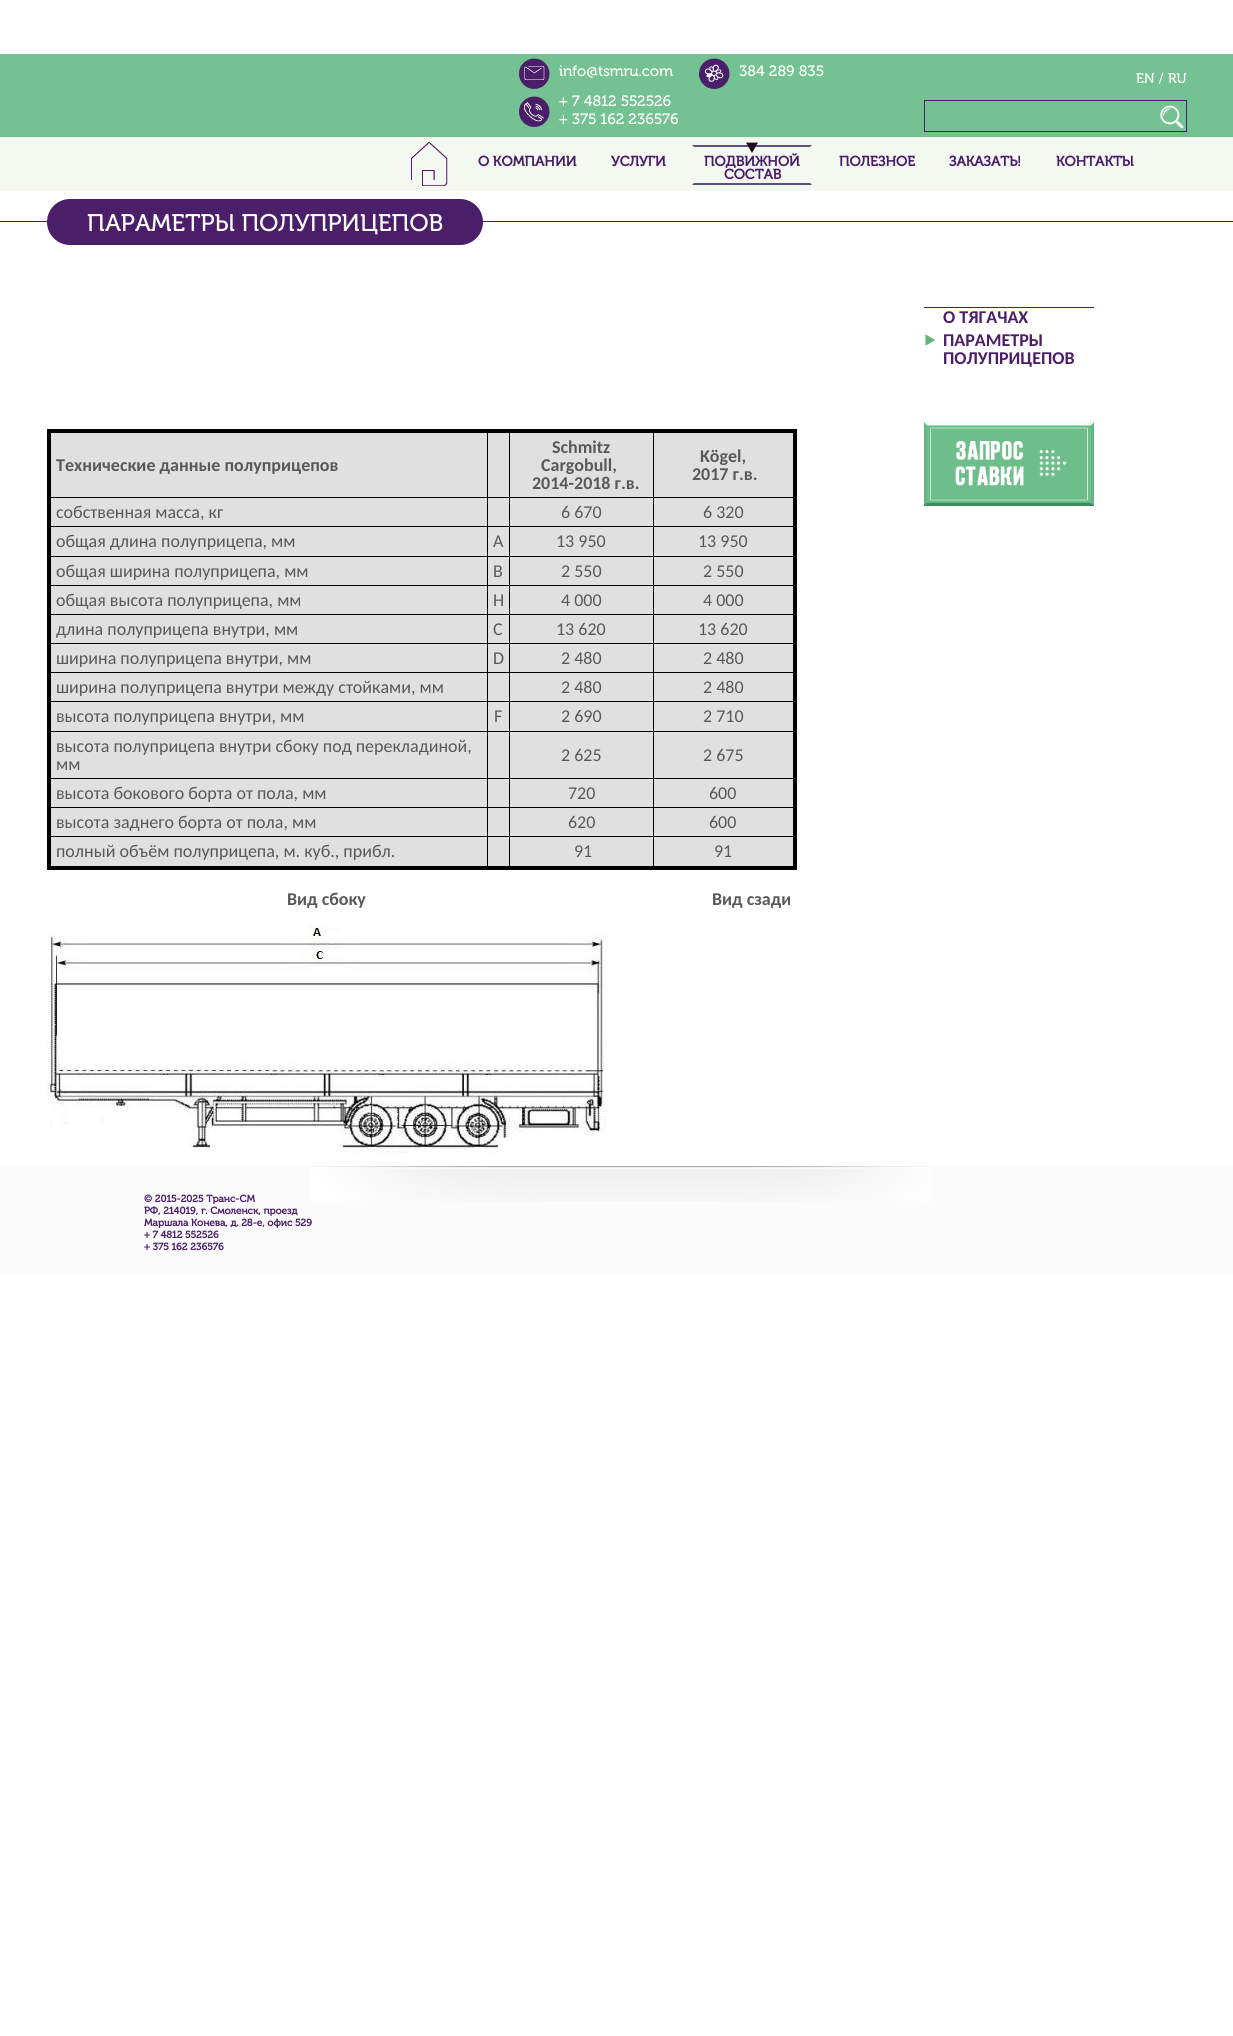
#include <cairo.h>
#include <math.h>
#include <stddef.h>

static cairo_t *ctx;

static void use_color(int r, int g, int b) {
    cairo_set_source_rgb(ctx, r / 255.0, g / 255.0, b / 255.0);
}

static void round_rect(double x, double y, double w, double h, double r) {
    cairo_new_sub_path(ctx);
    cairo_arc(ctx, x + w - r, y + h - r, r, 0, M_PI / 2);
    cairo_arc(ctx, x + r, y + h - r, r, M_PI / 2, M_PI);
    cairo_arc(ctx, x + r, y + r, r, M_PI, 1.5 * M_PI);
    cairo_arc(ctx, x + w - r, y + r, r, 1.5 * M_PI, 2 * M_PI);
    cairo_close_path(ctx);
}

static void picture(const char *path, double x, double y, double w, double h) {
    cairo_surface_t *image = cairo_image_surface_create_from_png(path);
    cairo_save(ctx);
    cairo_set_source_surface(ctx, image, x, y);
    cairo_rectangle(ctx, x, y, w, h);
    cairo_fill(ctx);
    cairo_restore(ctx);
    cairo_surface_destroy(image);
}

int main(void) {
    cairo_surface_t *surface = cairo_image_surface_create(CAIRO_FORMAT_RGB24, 1233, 2036);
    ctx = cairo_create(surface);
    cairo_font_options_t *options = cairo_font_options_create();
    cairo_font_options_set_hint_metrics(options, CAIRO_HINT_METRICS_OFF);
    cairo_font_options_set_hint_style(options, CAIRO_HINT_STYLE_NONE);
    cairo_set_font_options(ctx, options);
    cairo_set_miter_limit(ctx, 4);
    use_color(255, 255, 255);
    cairo_paint(ctx);
    use_color(116, 194, 145);
    cairo_rectangle(ctx, 0, 54, 1233, 83);
    cairo_fill(ctx);
    picture("img1.png", 519, 58, 31, 31);
    cairo_select_font_face(ctx, "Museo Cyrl", CAIRO_FONT_SLANT_NORMAL, CAIRO_FONT_WEIGHT_NORMAL);
    cairo_set_font_size(ctx, 15);
    use_color(255, 255, 255);
    cairo_move_to(ctx, 559, 76);
    cairo_show_text(ctx, "info@tsmru.com");
    picture("img2.png", 699, 58, 31, 31);
    cairo_move_to(ctx, 739, 76);
    cairo_show_text(ctx, "384 289 835");
    picture("img3.png", 519, 96, 31, 31);
    cairo_move_to(ctx, 559, 106);
    cairo_show_text(ctx, "+ 7 4812 552526");
    cairo_move_to(ctx, 559, 124);
    cairo_show_text(ctx, "+ 375 162 236576");
    cairo_set_font_size(ctx, 14);
    cairo_move_to(ctx, 1136, 83);
    cairo_show_text(ctx, "EN / RU");
    cairo_rectangle(ctx, 924.5, 100.5, 262, 31);
    use_color(75, 30, 106);
    cairo_set_line_width(ctx, 1);
    cairo_stroke(ctx);
    picture("img4.png", 1160, 105, 24, 24);
    use_color(243, 248, 241);
    cairo_rectangle(ctx, 0, 137, 1233, 54);
    cairo_fill(ctx);
    picture("img5.png", 411, 142, 37, 44);
    cairo_select_font_face(ctx, "Museo Cyrl", CAIRO_FONT_SLANT_NORMAL, CAIRO_FONT_WEIGHT_BOLD);
    use_color(75, 30, 106);
    cairo_move_to(ctx, 478, 166);
    cairo_show_text(ctx, "О КОМПАНИИ");
    cairo_move_to(ctx, 611, 166);
    cairo_show_text(ctx, "УСЛУГИ");
    use_color(94, 81, 121);
    cairo_new_path(ctx);
    cairo_move_to(ctx, 692, 145);
    cairo_line_to(ctx, 812, 145);
    cairo_line_to(ctx, 810, 147);
    cairo_line_to(ctx, 694, 147);
    cairo_close_path(ctx);
    cairo_fill(ctx);
    cairo_new_path(ctx);
    cairo_move_to(ctx, 812, 185);
    cairo_line_to(ctx, 692, 185);
    cairo_line_to(ctx, 694, 183);
    cairo_line_to(ctx, 810, 183);
    cairo_close_path(ctx);
    cairo_fill(ctx);
    picture("img6.png", 746, 142, 12, 11);
    use_color(75, 30, 106);
    cairo_move_to(ctx, 704, 166);
    cairo_show_text(ctx, "ПОДВИЖНОЙ");
    cairo_move_to(ctx, 724, 179);
    cairo_show_text(ctx, "СОСТАВ");
    cairo_move_to(ctx, 839, 166);
    cairo_show_text(ctx, "ПОЛЕЗНОЕ");
    cairo_move_to(ctx, 949, 166);
    cairo_show_text(ctx, "ЗАКАЗАТЬ!");
    cairo_move_to(ctx, 1056, 166);
    cairo_show_text(ctx, "КОНТАКТЫ");
    cairo_rectangle(ctx, 0, 221, 1233, 1);
    cairo_fill(ctx);
    round_rect(47, 199, 436, 46, 23);
    cairo_fill(ctx);
    cairo_select_font_face(ctx, "Museo Cyrl", CAIRO_FONT_SLANT_NORMAL, CAIRO_FONT_WEIGHT_NORMAL);
    cairo_set_font_size(ctx, 24);
    use_color(255, 255, 255);
    cairo_move_to(ctx, 87, 231);
    cairo_show_text(ctx, "ПАРАМЕТРЫ ПОЛУПРИЦЕПОВ");
    use_color(224, 224, 224);
    cairo_rectangle(ctx, 51, 433, 742, 433);
    cairo_fill(ctx);
    use_color(0, 0, 0);
    cairo_rectangle(ctx, 653, 497, 142, 1);
    cairo_fill(ctx);
    cairo_rectangle(ctx, 653, 526, 142, 1);
    cairo_fill(ctx);
    cairo_rectangle(ctx, 653, 556, 142, 1);
    cairo_fill(ctx);
    cairo_rectangle(ctx, 653, 585, 142, 1);
    cairo_fill(ctx);
    cairo_rectangle(ctx, 653, 614, 142, 1);
    cairo_fill(ctx);
    cairo_rectangle(ctx, 653, 643, 142, 1);
    cairo_fill(ctx);
    cairo_rectangle(ctx, 653, 672, 142, 1);
    cairo_fill(ctx);
    cairo_rectangle(ctx, 653, 701, 142, 1);
    cairo_fill(ctx);
    cairo_rectangle(ctx, 653, 731, 142, 1);
    cairo_fill(ctx);
    cairo_rectangle(ctx, 653, 778, 142, 1);
    cairo_fill(ctx);
    cairo_rectangle(ctx, 653, 807, 142, 1);
    cairo_fill(ctx);
    cairo_rectangle(ctx, 653, 836, 142, 1);
    cairo_fill(ctx);
    cairo_rectangle(ctx, 653, 836, 1, 32);
    cairo_fill(ctx);
    cairo_rectangle(ctx, 509, 836, 145, 1);
    cairo_fill(ctx);
    cairo_rectangle(ctx, 653, 807, 1, 30);
    cairo_fill(ctx);
    cairo_rectangle(ctx, 509, 807, 145, 1);
    cairo_fill(ctx);
    cairo_rectangle(ctx, 653, 778, 1, 30);
    cairo_fill(ctx);
    cairo_rectangle(ctx, 509, 778, 145, 1);
    cairo_fill(ctx);
    cairo_rectangle(ctx, 653, 731, 1, 48);
    cairo_fill(ctx);
    cairo_rectangle(ctx, 509, 731, 145, 1);
    cairo_fill(ctx);
    cairo_rectangle(ctx, 653, 701, 1, 31);
    cairo_fill(ctx);
    cairo_rectangle(ctx, 509, 701, 145, 1);
    cairo_fill(ctx);
    cairo_rectangle(ctx, 653, 672, 1, 30);
    cairo_fill(ctx);
    cairo_rectangle(ctx, 509, 672, 145, 1);
    cairo_fill(ctx);
    cairo_rectangle(ctx, 653, 643, 1, 30);
    cairo_fill(ctx);
    cairo_rectangle(ctx, 509, 643, 145, 1);
    cairo_fill(ctx);
    cairo_rectangle(ctx, 653, 614, 1, 30);
    cairo_fill(ctx);
    cairo_rectangle(ctx, 509, 614, 145, 1);
    cairo_fill(ctx);
    cairo_rectangle(ctx, 653, 585, 1, 30);
    cairo_fill(ctx);
    cairo_rectangle(ctx, 509, 585, 145, 1);
    cairo_fill(ctx);
    cairo_rectangle(ctx, 653, 556, 1, 30);
    cairo_fill(ctx);
    cairo_rectangle(ctx, 509, 556, 145, 1);
    cairo_fill(ctx);
    cairo_rectangle(ctx, 653, 526, 1, 31);
    cairo_fill(ctx);
    cairo_rectangle(ctx, 509, 526, 145, 1);
    cairo_fill(ctx);
    cairo_rectangle(ctx, 653, 497, 1, 30);
    cairo_fill(ctx);
    cairo_rectangle(ctx, 509, 497, 145, 1);
    cairo_fill(ctx);
    cairo_rectangle(ctx, 509, 836, 1, 32);
    cairo_fill(ctx);
    cairo_rectangle(ctx, 487, 836, 23, 1);
    cairo_fill(ctx);
    cairo_rectangle(ctx, 509, 807, 1, 30);
    cairo_fill(ctx);
    cairo_rectangle(ctx, 487, 807, 23, 1);
    cairo_fill(ctx);
    cairo_rectangle(ctx, 509, 778, 1, 30);
    cairo_fill(ctx);
    cairo_rectangle(ctx, 487, 778, 23, 1);
    cairo_fill(ctx);
    cairo_rectangle(ctx, 509, 731, 1, 48);
    cairo_fill(ctx);
    cairo_rectangle(ctx, 487, 731, 23, 1);
    cairo_fill(ctx);
    cairo_rectangle(ctx, 509, 701, 1, 31);
    cairo_fill(ctx);
    cairo_rectangle(ctx, 487, 701, 23, 1);
    cairo_fill(ctx);
    cairo_rectangle(ctx, 509, 672, 1, 30);
    cairo_fill(ctx);
    cairo_rectangle(ctx, 487, 672, 23, 1);
    cairo_fill(ctx);
    cairo_rectangle(ctx, 509, 643, 1, 30);
    cairo_fill(ctx);
    cairo_rectangle(ctx, 487, 643, 23, 1);
    cairo_fill(ctx);
    cairo_rectangle(ctx, 509, 614, 1, 30);
    cairo_fill(ctx);
    cairo_rectangle(ctx, 487, 614, 23, 1);
    cairo_fill(ctx);
    cairo_rectangle(ctx, 509, 585, 1, 30);
    cairo_fill(ctx);
    cairo_rectangle(ctx, 487, 585, 23, 1);
    cairo_fill(ctx);
    cairo_rectangle(ctx, 509, 556, 1, 30);
    cairo_fill(ctx);
    cairo_rectangle(ctx, 487, 556, 23, 1);
    cairo_fill(ctx);
    cairo_rectangle(ctx, 509, 526, 1, 31);
    cairo_fill(ctx);
    cairo_rectangle(ctx, 487, 526, 23, 1);
    cairo_fill(ctx);
    cairo_rectangle(ctx, 509, 497, 1, 30);
    cairo_fill(ctx);
    cairo_rectangle(ctx, 487, 497, 23, 1);
    cairo_fill(ctx);
    cairo_rectangle(ctx, 487, 836, 1, 32);
    cairo_fill(ctx);
    cairo_rectangle(ctx, 48, 836, 440, 1);
    cairo_fill(ctx);
    cairo_rectangle(ctx, 487, 807, 1, 30);
    cairo_fill(ctx);
    cairo_rectangle(ctx, 48, 807, 440, 1);
    cairo_fill(ctx);
    cairo_rectangle(ctx, 487, 778, 1, 30);
    cairo_fill(ctx);
    cairo_rectangle(ctx, 48, 778, 440, 1);
    cairo_fill(ctx);
    cairo_rectangle(ctx, 487, 731, 1, 48);
    cairo_fill(ctx);
    cairo_rectangle(ctx, 48, 731, 440, 1);
    cairo_fill(ctx);
    cairo_rectangle(ctx, 487, 701, 1, 31);
    cairo_fill(ctx);
    cairo_rectangle(ctx, 48, 701, 440, 1);
    cairo_fill(ctx);
    cairo_rectangle(ctx, 487, 672, 1, 30);
    cairo_fill(ctx);
    cairo_rectangle(ctx, 48, 672, 440, 1);
    cairo_fill(ctx);
    cairo_rectangle(ctx, 487, 643, 1, 30);
    cairo_fill(ctx);
    cairo_rectangle(ctx, 48, 643, 440, 1);
    cairo_fill(ctx);
    cairo_rectangle(ctx, 487, 614, 1, 30);
    cairo_fill(ctx);
    cairo_rectangle(ctx, 48, 614, 440, 1);
    cairo_fill(ctx);
    cairo_rectangle(ctx, 487, 585, 1, 30);
    cairo_fill(ctx);
    cairo_rectangle(ctx, 48, 585, 440, 1);
    cairo_fill(ctx);
    cairo_rectangle(ctx, 487, 556, 1, 30);
    cairo_fill(ctx);
    cairo_rectangle(ctx, 48, 556, 440, 1);
    cairo_fill(ctx);
    cairo_rectangle(ctx, 487, 526, 1, 31);
    cairo_fill(ctx);
    cairo_rectangle(ctx, 48, 526, 440, 1);
    cairo_fill(ctx);
    cairo_rectangle(ctx, 487, 497, 1, 30);
    cairo_fill(ctx);
    cairo_rectangle(ctx, 48, 497, 440, 1);
    cairo_fill(ctx);
    cairo_rectangle(ctx, 487, 430, 1, 68);
    cairo_fill(ctx);
    cairo_rectangle(ctx, 509, 430, 1, 68);
    cairo_fill(ctx);
    cairo_rectangle(ctx, 653, 430, 1, 68);
    cairo_fill(ctx);
    cairo_rectangle(ctx, 47, 429, 750, 4);
    cairo_fill(ctx);
    cairo_rectangle(ctx, 793, 429, 4, 441);
    cairo_fill(ctx);
    cairo_rectangle(ctx, 47, 866, 750, 4);
    cairo_fill(ctx);
    cairo_rectangle(ctx, 47, 429, 4, 441);
    cairo_fill(ctx);
    cairo_select_font_face(ctx, "Carlito", CAIRO_FONT_SLANT_NORMAL, CAIRO_FONT_WEIGHT_BOLD);
    cairo_set_font_size(ctx, 18);
    use_color(89, 89, 89);
    cairo_move_to(ctx, 56, 471);
    cairo_show_text(ctx, "Технические данные полуприцепов");
    cairo_move_to(ctx, 552, 453);
    cairo_show_text(ctx, "Schmitz");
    cairo_move_to(ctx, 541, 471);
    cairo_show_text(ctx, "Cargobull,");
    cairo_move_to(ctx, 532, 489);
    cairo_show_text(ctx, "2014-2018 г.в.");
    cairo_move_to(ctx, 700, 462);
    cairo_show_text(ctx, "Kögel,");
    cairo_move_to(ctx, 692, 480);
    cairo_show_text(ctx, "2017 г.в.");
    cairo_select_font_face(ctx, "Carlito", CAIRO_FONT_SLANT_NORMAL, CAIRO_FONT_WEIGHT_NORMAL);
    cairo_move_to(ctx, 56, 518);
    cairo_show_text(ctx, "собственная масса, кг");
    cairo_move_to(ctx, 561, 518);
    cairo_show_text(ctx, "6 670");
    cairo_move_to(ctx, 703, 518);
    cairo_show_text(ctx, "6 320");
    cairo_move_to(ctx, 56, 547);
    cairo_show_text(ctx, "общая длина полуприцепа, мм");
    cairo_move_to(ctx, 493, 547);
    cairo_show_text(ctx, "A");
    cairo_move_to(ctx, 556, 547);
    cairo_show_text(ctx, "13 950");
    cairo_move_to(ctx, 698, 547);
    cairo_show_text(ctx, "13 950");
    cairo_move_to(ctx, 56, 577);
    cairo_show_text(ctx, "общая ширина полуприцепа, мм");
    cairo_move_to(ctx, 493, 577);
    cairo_show_text(ctx, "B");
    cairo_move_to(ctx, 561, 577);
    cairo_show_text(ctx, "2 550");
    cairo_move_to(ctx, 703, 577);
    cairo_show_text(ctx, "2 550");
    cairo_move_to(ctx, 56, 606);
    cairo_show_text(ctx, "общая высота полуприцепа, мм");
    cairo_move_to(ctx, 493, 606);
    cairo_show_text(ctx, "H");
    cairo_move_to(ctx, 561, 606);
    cairo_show_text(ctx, "4 000");
    cairo_move_to(ctx, 703, 606);
    cairo_show_text(ctx, "4 000");
    cairo_move_to(ctx, 56, 635);
    cairo_show_text(ctx, "длина полуприцепа внутри, мм");
    cairo_move_to(ctx, 493, 635);
    cairo_show_text(ctx, "C");
    cairo_move_to(ctx, 556, 635);
    cairo_show_text(ctx, "13 620");
    cairo_move_to(ctx, 698, 635);
    cairo_show_text(ctx, "13 620");
    cairo_move_to(ctx, 56, 664);
    cairo_show_text(ctx, "ширина полуприцепа внутри, мм");
    cairo_move_to(ctx, 493, 664);
    cairo_show_text(ctx, "D");
    cairo_move_to(ctx, 561, 664);
    cairo_show_text(ctx, "2 480");
    cairo_move_to(ctx, 703, 664);
    cairo_show_text(ctx, "2 480");
    cairo_move_to(ctx, 56, 693);
    cairo_show_text(ctx, "ширина полуприцепа внутри между стойками, мм");
    cairo_move_to(ctx, 561, 693);
    cairo_show_text(ctx, "2 480");
    cairo_move_to(ctx, 703, 693);
    cairo_show_text(ctx, "2 480");
    cairo_move_to(ctx, 56, 722);
    cairo_show_text(ctx, "высота полуприцепа внутри, мм");
    cairo_move_to(ctx, 494, 722);
    cairo_show_text(ctx, "F");
    cairo_move_to(ctx, 561, 722);
    cairo_show_text(ctx, "2 690");
    cairo_move_to(ctx, 703, 722);
    cairo_show_text(ctx, "2 710");
    cairo_move_to(ctx, 56, 752);
    cairo_show_text(ctx, "высота полуприцепа внутри сбоку под перекладиной,");
    cairo_move_to(ctx, 56, 770);
    cairo_show_text(ctx, "мм");
    cairo_move_to(ctx, 561, 761);
    cairo_show_text(ctx, "2 625");
    cairo_move_to(ctx, 703, 761);
    cairo_show_text(ctx, "2 675");
    cairo_move_to(ctx, 56, 799);
    cairo_show_text(ctx, "высота бокового борта от пола, мм");
    cairo_move_to(ctx, 568, 799);
    cairo_show_text(ctx, "720");
    cairo_move_to(ctx, 709, 799);
    cairo_show_text(ctx, "600");
    cairo_move_to(ctx, 56, 828);
    cairo_show_text(ctx, "высота заднего борта от пола, мм");
    cairo_move_to(ctx, 568, 828);
    cairo_show_text(ctx, "620");
    cairo_move_to(ctx, 709, 828);
    cairo_show_text(ctx, "600");
    cairo_move_to(ctx, 56, 857);
    cairo_show_text(ctx, "полный объём полуприцепа, м. куб., прибл.");
    cairo_move_to(ctx, 574, 857);
    cairo_show_text(ctx, "91");
    cairo_move_to(ctx, 714, 857);
    cairo_show_text(ctx, "91");
    cairo_select_font_face(ctx, "Carlito", CAIRO_FONT_SLANT_NORMAL, CAIRO_FONT_WEIGHT_BOLD);
    cairo_move_to(ctx, 287, 905);
    cairo_show_text(ctx, "Вид сбоку");
    picture("img7.png", 47, 924, 560, 232);
    cairo_move_to(ctx, 712, 905);
    cairo_show_text(ctx, "Вид сзади");
    use_color(75, 30, 106);
    cairo_rectangle(ctx, 924, 307, 170, 1);
    cairo_fill(ctx);
    cairo_move_to(ctx, 943, 323);
    cairo_show_text(ctx, "О ТЯГАЧАХ");
    picture("img8.png", 925, 334, 11, 12);
    cairo_move_to(ctx, 943, 346);
    cairo_show_text(ctx, "ПАРАМЕТРЫ");
    cairo_move_to(ctx, 943, 364);
    cairo_show_text(ctx, "ПОЛУПРИЦЕПОВ");
    picture("img9.png", 924, 422, 170, 84);
    use_color(251, 251, 251);
    cairo_rectangle(ctx, 0, 1166, 1233, 107);
    cairo_fill(ctx);
    picture("img10.png", 310, 1166, 622, 35);
    cairo_select_font_face(ctx, "Museo Cyrl", CAIRO_FONT_SLANT_NORMAL, CAIRO_FONT_WEIGHT_BOLD);
    cairo_set_font_size(ctx, 10);
    use_color(75, 30, 106);
    cairo_move_to(ctx, 144, 1202);
    cairo_show_text(ctx, "© 2015-2025 Транс-СМ");
    cairo_move_to(ctx, 144, 1214);
    cairo_show_text(ctx, "РФ, 214019, г. Смоленск, проезд");
    cairo_move_to(ctx, 144, 1226);
    cairo_show_text(ctx, "Маршала Конева, д. 28-е, офис 529");
    cairo_move_to(ctx, 144, 1238);
    cairo_show_text(ctx, "+ 7 4812 552526");
    cairo_move_to(ctx, 144, 1250);
    cairo_show_text(ctx, "+ 375 162 236576");
    cairo_surface_write_to_png(surface, "result.png");
    cairo_font_options_destroy(options);
    cairo_destroy(ctx);
    cairo_surface_destroy(surface);
    return 0;
}
